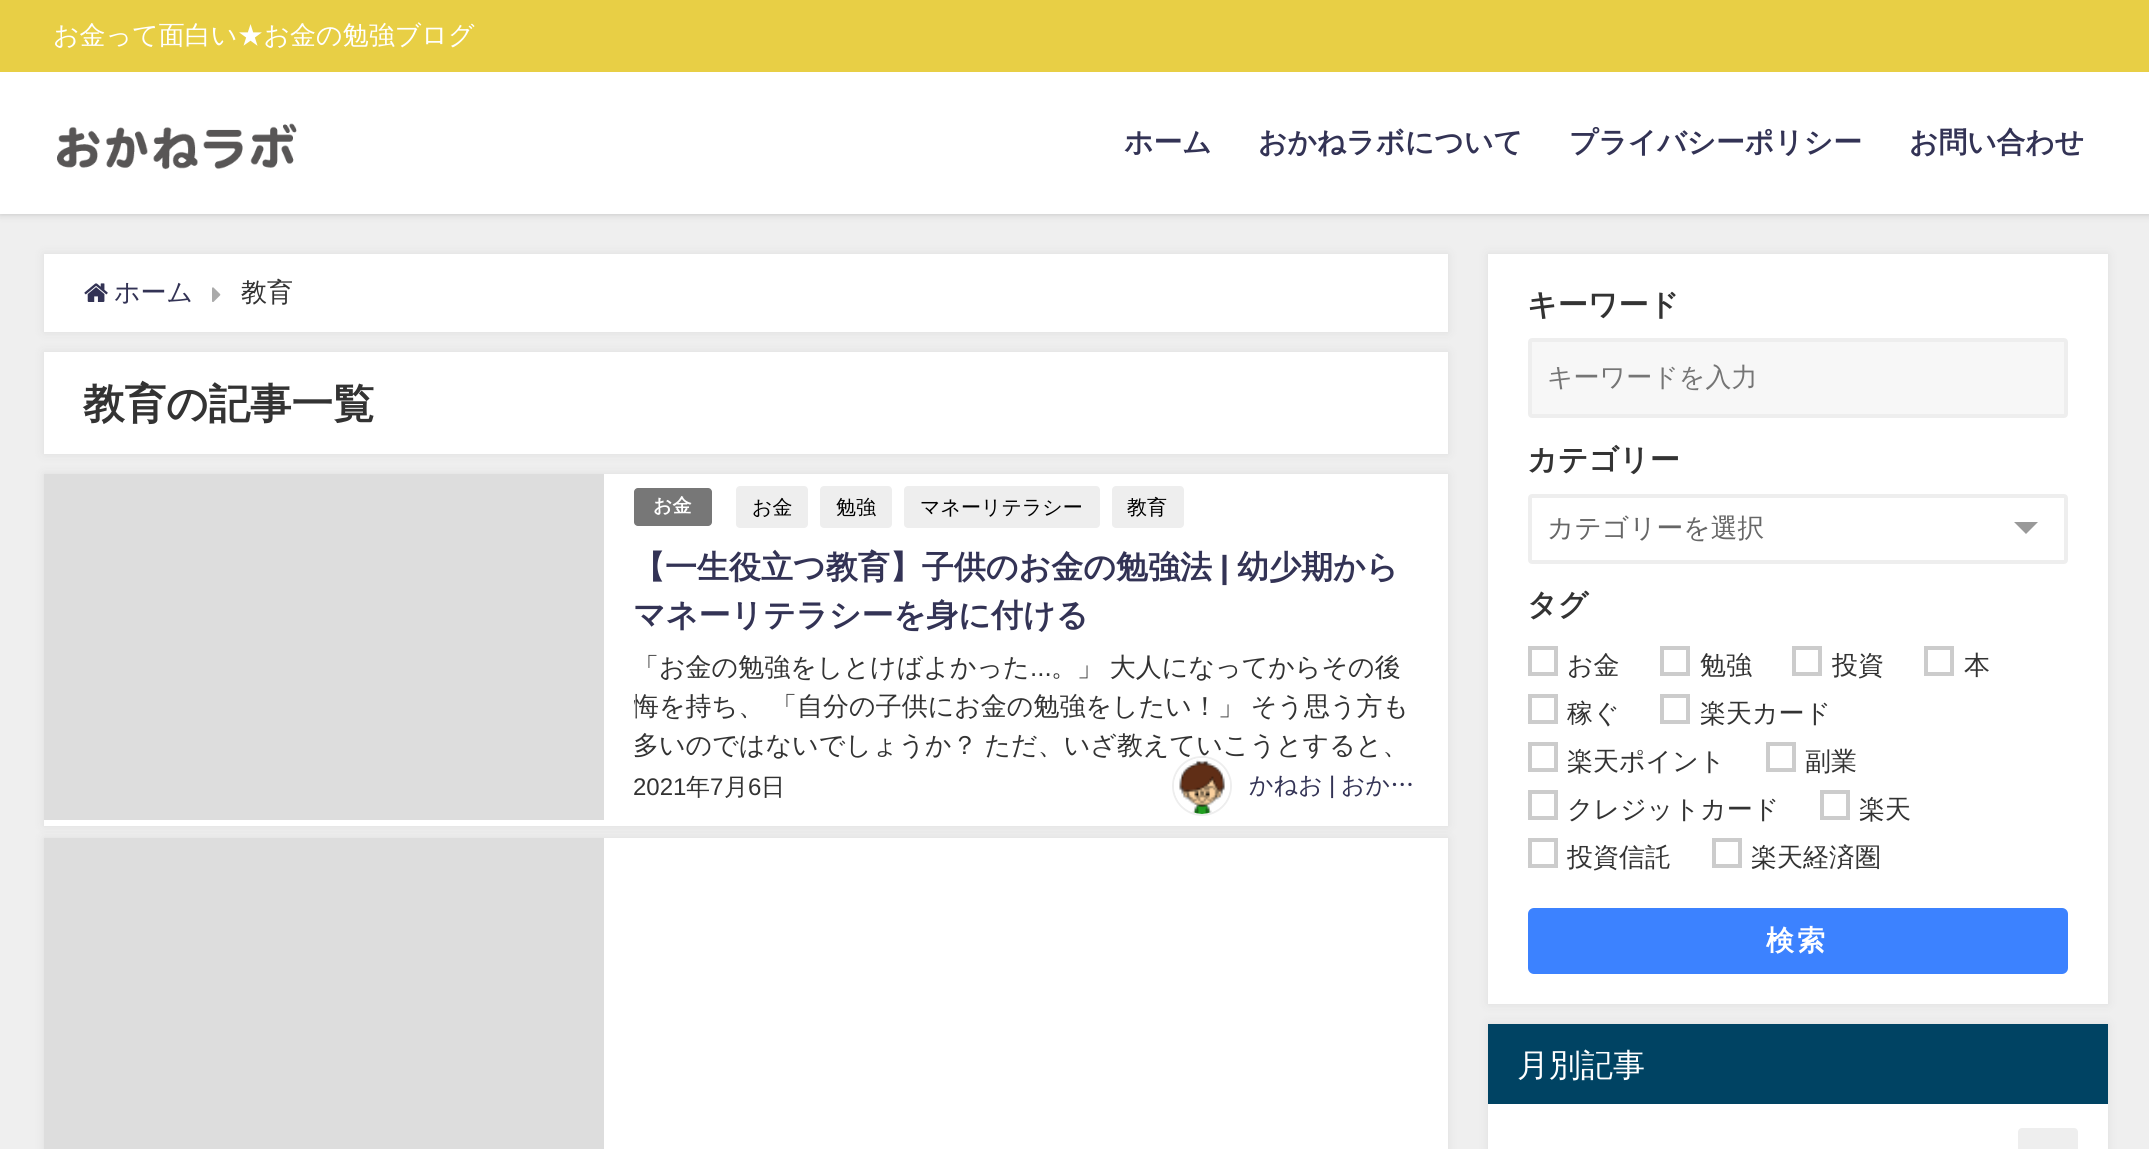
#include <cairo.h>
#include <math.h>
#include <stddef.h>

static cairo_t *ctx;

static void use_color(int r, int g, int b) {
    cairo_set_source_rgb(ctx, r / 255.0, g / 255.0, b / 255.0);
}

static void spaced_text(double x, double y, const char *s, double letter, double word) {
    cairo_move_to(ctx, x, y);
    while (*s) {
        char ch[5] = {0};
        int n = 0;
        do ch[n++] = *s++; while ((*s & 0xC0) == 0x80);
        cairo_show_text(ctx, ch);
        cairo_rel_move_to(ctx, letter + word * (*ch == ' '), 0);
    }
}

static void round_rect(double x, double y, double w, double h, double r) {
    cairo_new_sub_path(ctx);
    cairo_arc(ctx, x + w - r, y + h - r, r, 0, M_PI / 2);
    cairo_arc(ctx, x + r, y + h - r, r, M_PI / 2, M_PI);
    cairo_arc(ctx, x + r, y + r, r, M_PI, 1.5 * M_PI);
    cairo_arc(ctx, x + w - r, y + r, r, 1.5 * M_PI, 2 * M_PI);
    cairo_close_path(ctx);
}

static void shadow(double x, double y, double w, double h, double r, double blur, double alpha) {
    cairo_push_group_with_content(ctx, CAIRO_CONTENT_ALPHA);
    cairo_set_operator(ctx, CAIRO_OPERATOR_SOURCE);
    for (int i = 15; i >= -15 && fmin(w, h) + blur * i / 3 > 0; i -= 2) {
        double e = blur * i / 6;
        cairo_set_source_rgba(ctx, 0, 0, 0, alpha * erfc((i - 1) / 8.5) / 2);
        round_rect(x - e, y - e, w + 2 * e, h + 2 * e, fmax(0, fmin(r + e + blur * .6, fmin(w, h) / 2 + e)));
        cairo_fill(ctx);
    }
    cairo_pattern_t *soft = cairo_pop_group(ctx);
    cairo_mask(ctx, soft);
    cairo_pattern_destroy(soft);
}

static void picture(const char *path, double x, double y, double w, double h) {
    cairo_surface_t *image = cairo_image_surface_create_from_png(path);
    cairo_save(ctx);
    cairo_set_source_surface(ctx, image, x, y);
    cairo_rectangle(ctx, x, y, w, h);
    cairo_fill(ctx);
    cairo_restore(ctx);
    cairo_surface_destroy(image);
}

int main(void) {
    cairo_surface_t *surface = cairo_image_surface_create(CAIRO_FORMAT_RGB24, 2149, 1149);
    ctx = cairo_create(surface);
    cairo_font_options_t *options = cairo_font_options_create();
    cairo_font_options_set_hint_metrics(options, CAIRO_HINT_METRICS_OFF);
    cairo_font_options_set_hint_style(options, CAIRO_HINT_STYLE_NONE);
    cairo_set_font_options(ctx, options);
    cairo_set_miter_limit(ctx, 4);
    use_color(239, 239, 239);
    cairo_paint(ctx);
    use_color(0, 0, 0);
    shadow(0, 0, 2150, 214, 0, 4, 0.2);
    use_color(255, 255, 255);
    cairo_rectangle(ctx, 0, 72, 2149, 142);
    cairo_fill(ctx);
    use_color(232, 207, 69);
    cairo_rectangle(ctx, 0, 0, 2149, 72);
    cairo_fill(ctx);
    cairo_select_font_face(ctx, "WenQuanYi Zen Hei Medium", CAIRO_FONT_SLANT_NORMAL, CAIRO_FONT_WEIGHT_NORMAL);
    cairo_set_font_size(ctx, 26);
    use_color(255, 255, 255);
    cairo_move_to(ctx, 53, 44);
    cairo_show_text(ctx, "お金って面白い★お金の勉強ブログ");
    picture("img1.png", 57, 123, 240, 47);
    cairo_select_font_face(ctx, "WenQuanYi Zen Hei", CAIRO_FONT_SLANT_NORMAL, CAIRO_FONT_WEIGHT_BOLD);
    cairo_set_font_size(ctx, 28.75);
    use_color(51, 51, 85);
    cairo_move_to(ctx, 1124, 152);
    cairo_show_text(ctx, "ホーム");
    cairo_move_to(ctx, 1258, 152);
    cairo_show_text(ctx, "おかねラボについて");
    cairo_move_to(ctx, 1569, 152);
    cairo_show_text(ctx, "プライバシーポリシー");
    cairo_move_to(ctx, 1909, 152);
    cairo_show_text(ctx, "お問い合わせ");
    use_color(150, 150, 150);
    shadow(44, 254, 1404, 78, 0, 5, 0.2);
    use_color(255, 255, 255);
    cairo_rectangle(ctx, 44, 254, 1404, 78);
    cairo_fill(ctx);
    picture("img2.png", 84, 283, 24, 19);
    cairo_select_font_face(ctx, "WenQuanYi Zen Hei Medium", CAIRO_FONT_SLANT_NORMAL, CAIRO_FONT_WEIGHT_NORMAL);
    cairo_set_font_size(ctx, 26);
    use_color(51, 51, 85);
    cairo_move_to(ctx, 114, 301);
    cairo_show_text(ctx, "ホーム");
    picture("img3.png", 212, 287, 9, 15);
    use_color(51, 51, 51);
    cairo_move_to(ctx, 241, 301);
    cairo_show_text(ctx, "教育");
    use_color(150, 150, 150);
    shadow(44, 352, 1404, 102, 0, 5, 0.2);
    use_color(255, 255, 255);
    cairo_rectangle(ctx, 44, 352, 1404, 102);
    cairo_fill(ctx);
    cairo_select_font_face(ctx, "WenQuanYi Zen Hei", CAIRO_FONT_SLANT_NORMAL, CAIRO_FONT_WEIGHT_BOLD);
    cairo_set_font_size(ctx, 41.5);
    use_color(51, 51, 51);
    cairo_move_to(ctx, 83, 418);
    cairo_show_text(ctx, "教育の記事一覧");
    use_color(150, 150, 150);
    shadow(44, 474, 1404, 352, 0, 5, 0.2);
    use_color(255, 255, 255);
    cairo_rectangle(ctx, 44, 474, 1404, 352);
    cairo_fill(ctx);
    use_color(221, 221, 221);
    cairo_rectangle(ctx, 44, 474, 560, 346);
    cairo_fill(ctx);
    use_color(119, 119, 119);
    round_rect(634, 488, 78, 38, 4);
    cairo_fill(ctx);
    cairo_set_font_size(ctx, 19);
    use_color(255, 255, 255);
    cairo_move_to(ctx, 653, 512);
    cairo_show_text(ctx, "お金");
    use_color(238, 238, 238);
    round_rect(736, 486, 72, 42, 4);
    cairo_fill(ctx);
    cairo_select_font_face(ctx, "WenQuanYi Zen Hei Medium", CAIRO_FONT_SLANT_NORMAL, CAIRO_FONT_WEIGHT_NORMAL);
    cairo_set_font_size(ctx, 20);
    use_color(0, 0, 0);
    cairo_move_to(ctx, 752, 514);
    cairo_show_text(ctx, "お金");
    use_color(238, 238, 238);
    round_rect(820, 486, 72, 42, 4);
    cairo_fill(ctx);
    use_color(0, 0, 0);
    cairo_move_to(ctx, 836, 514);
    cairo_show_text(ctx, "勉強");
    use_color(238, 238, 238);
    round_rect(904, 486, 196, 42, 4);
    cairo_fill(ctx);
    use_color(0, 0, 0);
    cairo_move_to(ctx, 920, 514);
    cairo_show_text(ctx, "マネーリテラシー");
    use_color(238, 238, 238);
    round_rect(1112, 486, 72, 42, 4);
    cairo_fill(ctx);
    use_color(0, 0, 0);
    cairo_move_to(ctx, 1127, 514);
    cairo_show_text(ctx, "教育");
    cairo_select_font_face(ctx, "WenQuanYi Zen Hei", CAIRO_FONT_SLANT_NORMAL, CAIRO_FONT_WEIGHT_BOLD);
    cairo_set_font_size(ctx, 32);
    use_color(51, 51, 85);
    cairo_move_to(ctx, 633, 578);
    cairo_show_text(ctx, "【一生役立つ教育】子供のお金の勉強法");
    cairo_select_font_face(ctx, "Liberation Sans", CAIRO_FONT_SLANT_NORMAL, CAIRO_FONT_WEIGHT_BOLD);
    cairo_move_to(ctx, 1220, 578);
    cairo_show_text(ctx, "|");
    cairo_select_font_face(ctx, "WenQuanYi Zen Hei", CAIRO_FONT_SLANT_NORMAL, CAIRO_FONT_WEIGHT_BOLD);
    cairo_move_to(ctx, 1237, 578);
    cairo_show_text(ctx, "幼少期から");
    cairo_move_to(ctx, 633, 626);
    cairo_show_text(ctx, "マネーリテラシーを身に付ける");
    cairo_select_font_face(ctx, "WenQuanYi Zen Hei Medium", CAIRO_FONT_SLANT_NORMAL, CAIRO_FONT_WEIGHT_NORMAL);
    cairo_set_font_size(ctx, 26);
    use_color(51, 51, 51);
    cairo_move_to(ctx, 633, 676);
    cairo_show_text(ctx, "「お金の勉強をしとけばよかった");
    cairo_select_font_face(ctx, "Liberation Sans", CAIRO_FONT_SLANT_NORMAL, CAIRO_FONT_WEIGHT_NORMAL);
    cairo_move_to(ctx, 1030, 676);
    cairo_show_text(ctx, "...");
    cairo_select_font_face(ctx, "WenQuanYi Zen Hei Medium", CAIRO_FONT_SLANT_NORMAL, CAIRO_FONT_WEIGHT_NORMAL);
    spaced_text(1051, 676, "。」 大人になってからその後", 0, -1);
    cairo_save(ctx);
    cairo_rectangle(ctx, 634, 648, 784, 118);
    cairo_clip(ctx);
    spaced_text(633, 715, "悔を持ち、 「自分の子供にお金の勉強をしたい！」 そう思う方も", 0, -1);
    cairo_restore(ctx);
    spaced_text(633, 754, "多いのではないでしょうか？ ただ、いざ教えていこうとすると、", 0, -1);
    cairo_select_font_face(ctx, "Liberation Sans", CAIRO_FONT_SLANT_NORMAL, CAIRO_FONT_WEIGHT_NORMAL);
    cairo_set_font_size(ctx, 24);
    cairo_move_to(ctx, 633, 795);
    cairo_show_text(ctx, "2021");
    cairo_select_font_face(ctx, "WenQuanYi Zen Hei Medium", CAIRO_FONT_SLANT_NORMAL, CAIRO_FONT_WEIGHT_NORMAL);
    cairo_move_to(ctx, 686, 795);
    cairo_show_text(ctx, "年");
    cairo_select_font_face(ctx, "Liberation Sans", CAIRO_FONT_SLANT_NORMAL, CAIRO_FONT_WEIGHT_NORMAL);
    cairo_move_to(ctx, 710, 795);
    cairo_show_text(ctx, "7");
    cairo_select_font_face(ctx, "WenQuanYi Zen Hei Medium", CAIRO_FONT_SLANT_NORMAL, CAIRO_FONT_WEIGHT_NORMAL);
    cairo_move_to(ctx, 724, 795);
    cairo_show_text(ctx, "月");
    cairo_select_font_face(ctx, "Liberation Sans", CAIRO_FONT_SLANT_NORMAL, CAIRO_FONT_WEIGHT_NORMAL);
    cairo_move_to(ctx, 748, 795);
    cairo_show_text(ctx, "6");
    cairo_select_font_face(ctx, "WenQuanYi Zen Hei Medium", CAIRO_FONT_SLANT_NORMAL, CAIRO_FONT_WEIGHT_NORMAL);
    cairo_move_to(ctx, 761, 795);
    cairo_show_text(ctx, "日");
    cairo_new_path(ctx);
    cairo_arc(ctx, 1202, 786, 29, 0, 2 * M_PI);
    use_color(238, 238, 238);
    cairo_stroke(ctx);
    picture("img4.png", 1174, 758, 56, 56);
    use_color(51, 51, 85);
    cairo_move_to(ctx, 1249, 793);
    cairo_show_text(ctx, "かねお");
    cairo_select_font_face(ctx, "Liberation Sans", CAIRO_FONT_SLANT_NORMAL, CAIRO_FONT_WEIGHT_NORMAL);
    cairo_move_to(ctx, 1329, 793);
    cairo_show_text(ctx, "|");
    cairo_select_font_face(ctx, "WenQuanYi Zen Hei Medium", CAIRO_FONT_SLANT_NORMAL, CAIRO_FONT_WEIGHT_NORMAL);
    cairo_move_to(ctx, 1341, 793);
    cairo_show_text(ctx, "おか…");
    use_color(150, 150, 150);
    shadow(44, 838, 1404, 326, 0, 5, 0.2);
    use_color(255, 255, 255);
    cairo_rectangle(ctx, 604, 838, 844, 311);
    cairo_fill(ctx);
    use_color(221, 221, 221);
    cairo_rectangle(ctx, 44, 838, 560, 311);
    cairo_fill(ctx);
    use_color(150, 150, 150);
    shadow(1488, 254, 620, 750, 0, 5, 0.2);
    use_color(255, 255, 255);
    cairo_rectangle(ctx, 1488, 254, 620, 750);
    cairo_fill(ctx);
    cairo_select_font_face(ctx, "WenQuanYi Zen Hei", CAIRO_FONT_SLANT_NORMAL, CAIRO_FONT_WEIGHT_BOLD);
    cairo_set_font_size(ctx, 30);
    use_color(51, 51, 51);
    cairo_move_to(ctx, 1527, 315);
    cairo_show_text(ctx, "キーワード");
    use_color(247, 247, 247);
    round_rect(1530, 340, 536, 76, 2);
    cairo_fill_preserve(ctx);
    use_color(238, 238, 238);
    cairo_set_line_width(ctx, 4);
    cairo_stroke(ctx);
    cairo_select_font_face(ctx, "WenQuanYi Zen Hei Medium", CAIRO_FONT_SLANT_NORMAL, CAIRO_FONT_WEIGHT_NORMAL);
    cairo_set_font_size(ctx, 26);
    use_color(117, 117, 117);
    cairo_move_to(ctx, 1547, 386);
    cairo_show_text(ctx, "キーワードを入力");
    cairo_select_font_face(ctx, "WenQuanYi Zen Hei", CAIRO_FONT_SLANT_NORMAL, CAIRO_FONT_WEIGHT_BOLD);
    cairo_set_font_size(ctx, 30);
    use_color(51, 51, 51);
    cairo_move_to(ctx, 1527, 470);
    cairo_show_text(ctx, "カテゴリー");
    round_rect(1530, 496, 536, 66, 2);
    use_color(238, 238, 238);
    cairo_stroke(ctx);
    cairo_select_font_face(ctx, "WenQuanYi Zen Hei Medium", CAIRO_FONT_SLANT_NORMAL, CAIRO_FONT_WEIGHT_NORMAL);
    cairo_set_font_size(ctx, 26.75);
    use_color(102, 102, 102);
    cairo_move_to(ctx, 1547, 537);
    cairo_show_text(ctx, "カテゴリーを選択");
    use_color(153, 153, 153);
    cairo_new_path(ctx);
    cairo_move_to(ctx, 2014, 522);
    cairo_line_to(ctx, 2038, 522);
    cairo_line_to(ctx, 2026, 534);
    cairo_close_path(ctx);
    cairo_fill(ctx);
    cairo_select_font_face(ctx, "WenQuanYi Zen Hei", CAIRO_FONT_SLANT_NORMAL, CAIRO_FONT_WEIGHT_BOLD);
    cairo_set_font_size(ctx, 30);
    use_color(51, 51, 51);
    cairo_move_to(ctx, 1527, 615);
    cairo_show_text(ctx, "タグ");
    cairo_rectangle(ctx, 1530, 648, 26, 26);
    use_color(204, 204, 204);
    cairo_stroke(ctx);
    cairo_select_font_face(ctx, "WenQuanYi Zen Hei Medium", CAIRO_FONT_SLANT_NORMAL, CAIRO_FONT_WEIGHT_NORMAL);
    cairo_set_font_size(ctx, 26);
    use_color(51, 51, 51);
    cairo_move_to(ctx, 1567, 674);
    cairo_show_text(ctx, "お金");
    cairo_rectangle(ctx, 1662, 648, 26, 26);
    use_color(204, 204, 204);
    cairo_stroke(ctx);
    use_color(51, 51, 51);
    cairo_move_to(ctx, 1700, 674);
    cairo_show_text(ctx, "勉強");
    cairo_rectangle(ctx, 1794, 648, 26, 26);
    use_color(204, 204, 204);
    cairo_stroke(ctx);
    use_color(51, 51, 51);
    cairo_move_to(ctx, 1832, 674);
    cairo_show_text(ctx, "投資");
    cairo_rectangle(ctx, 1926, 648, 26, 26);
    use_color(204, 204, 204);
    cairo_stroke(ctx);
    use_color(51, 51, 51);
    cairo_move_to(ctx, 1964, 674);
    cairo_show_text(ctx, "本");
    cairo_rectangle(ctx, 1530, 696, 26, 26);
    use_color(204, 204, 204);
    cairo_stroke(ctx);
    use_color(51, 51, 51);
    cairo_move_to(ctx, 1567, 722);
    cairo_show_text(ctx, "稼ぐ");
    cairo_rectangle(ctx, 1662, 696, 26, 26);
    use_color(204, 204, 204);
    cairo_stroke(ctx);
    use_color(51, 51, 51);
    cairo_move_to(ctx, 1700, 722);
    cairo_show_text(ctx, "楽天カード");
    cairo_rectangle(ctx, 1530, 744, 26, 26);
    use_color(204, 204, 204);
    cairo_stroke(ctx);
    use_color(51, 51, 51);
    cairo_move_to(ctx, 1567, 770);
    cairo_show_text(ctx, "楽天ポイント");
    cairo_rectangle(ctx, 1768, 744, 26, 26);
    use_color(204, 204, 204);
    cairo_stroke(ctx);
    use_color(51, 51, 51);
    cairo_move_to(ctx, 1805, 770);
    cairo_show_text(ctx, "副業");
    cairo_rectangle(ctx, 1530, 792, 26, 26);
    use_color(204, 204, 204);
    cairo_stroke(ctx);
    use_color(51, 51, 51);
    cairo_move_to(ctx, 1567, 818);
    cairo_show_text(ctx, "クレジットカード");
    cairo_rectangle(ctx, 1822, 792, 26, 26);
    use_color(204, 204, 204);
    cairo_stroke(ctx);
    use_color(51, 51, 51);
    cairo_move_to(ctx, 1859, 818);
    cairo_show_text(ctx, "楽天");
    cairo_rectangle(ctx, 1530, 840, 26, 26);
    use_color(204, 204, 204);
    cairo_stroke(ctx);
    use_color(51, 51, 51);
    cairo_move_to(ctx, 1567, 866);
    cairo_show_text(ctx, "投資信託");
    cairo_rectangle(ctx, 1714, 840, 26, 26);
    use_color(204, 204, 204);
    cairo_stroke(ctx);
    use_color(51, 51, 51);
    cairo_move_to(ctx, 1751, 866);
    cairo_show_text(ctx, "楽天経済圏");
    use_color(60, 130, 255);
    round_rect(1528, 908, 540, 66, 6);
    cairo_fill(ctx);
    cairo_select_font_face(ctx, "WenQuanYi Zen Hei", CAIRO_FONT_SLANT_NORMAL, CAIRO_FONT_WEIGHT_BOLD);
    cairo_set_font_size(ctx, 28);
    use_color(255, 255, 255);
    spaced_text(1766, 950, "検索", 3, 0);
    use_color(150, 150, 150);
    shadow(1488, 1024, 620, 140, 0, 5, 0.2);
    use_color(255, 255, 255);
    cairo_rectangle(ctx, 1488, 1104, 620, 45);
    cairo_fill(ctx);
    use_color(0, 67, 99);
    cairo_rectangle(ctx, 1488, 1024, 620, 80);
    cairo_fill(ctx);
    cairo_select_font_face(ctx, "WenQuanYi Zen Hei Medium", CAIRO_FONT_SLANT_NORMAL, CAIRO_FONT_WEIGHT_NORMAL);
    cairo_set_font_size(ctx, 32);
    use_color(255, 255, 255);
    cairo_move_to(ctx, 1517, 1076);
    cairo_show_text(ctx, "月別記事");
    use_color(238, 238, 238);
    round_rect(2018, 1128, 60, 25, 4);
    cairo_fill(ctx);
    cairo_surface_write_to_png(surface, "result.png");
    cairo_font_options_destroy(options);
    cairo_destroy(ctx);
    cairo_surface_destroy(surface);
    return 0;
}
